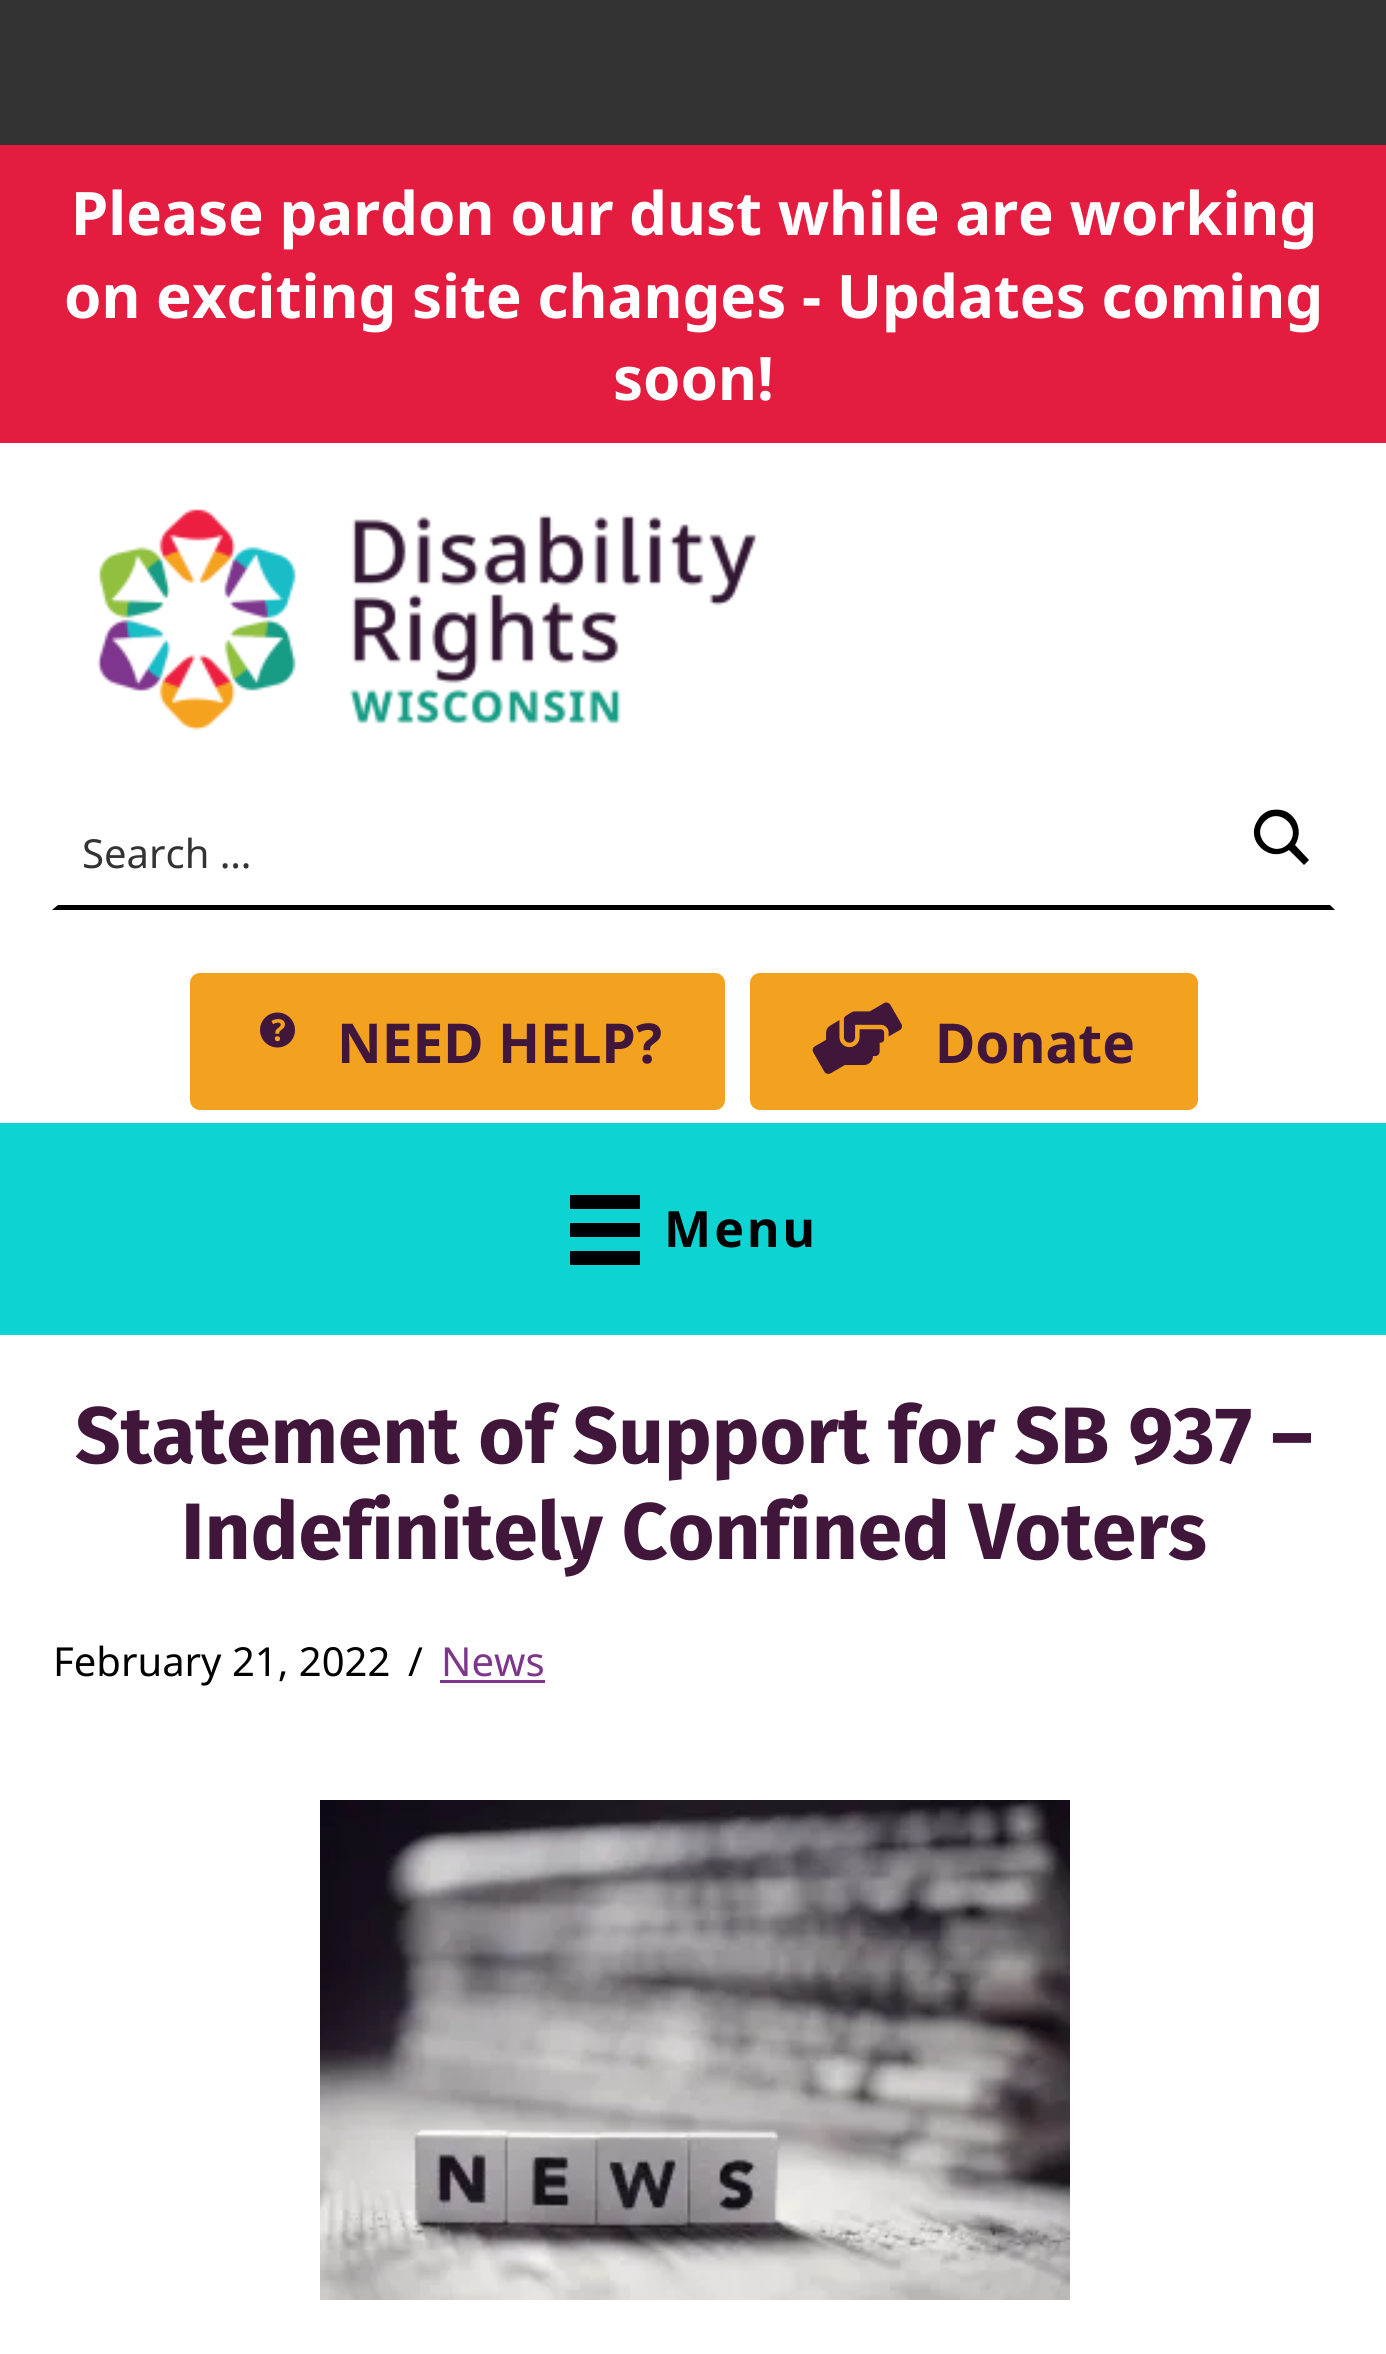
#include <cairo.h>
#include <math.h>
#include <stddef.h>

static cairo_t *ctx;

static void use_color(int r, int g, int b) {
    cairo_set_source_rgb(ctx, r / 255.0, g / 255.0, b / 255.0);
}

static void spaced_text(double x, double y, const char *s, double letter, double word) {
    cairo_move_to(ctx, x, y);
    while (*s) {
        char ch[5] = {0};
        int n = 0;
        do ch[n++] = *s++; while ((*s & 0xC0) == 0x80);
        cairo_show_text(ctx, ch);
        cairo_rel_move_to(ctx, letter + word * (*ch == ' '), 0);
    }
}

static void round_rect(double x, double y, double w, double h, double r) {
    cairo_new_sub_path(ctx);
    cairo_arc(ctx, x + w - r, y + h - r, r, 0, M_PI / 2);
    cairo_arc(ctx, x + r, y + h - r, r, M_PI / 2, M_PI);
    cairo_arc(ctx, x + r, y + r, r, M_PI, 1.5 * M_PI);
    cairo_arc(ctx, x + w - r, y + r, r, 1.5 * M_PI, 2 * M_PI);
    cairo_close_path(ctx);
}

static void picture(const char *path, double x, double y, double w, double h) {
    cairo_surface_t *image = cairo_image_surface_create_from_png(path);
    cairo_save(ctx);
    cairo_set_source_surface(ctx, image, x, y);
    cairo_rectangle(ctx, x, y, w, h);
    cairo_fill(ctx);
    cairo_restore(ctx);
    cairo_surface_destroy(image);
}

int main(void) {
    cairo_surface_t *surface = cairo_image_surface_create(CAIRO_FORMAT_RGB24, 1386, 2354);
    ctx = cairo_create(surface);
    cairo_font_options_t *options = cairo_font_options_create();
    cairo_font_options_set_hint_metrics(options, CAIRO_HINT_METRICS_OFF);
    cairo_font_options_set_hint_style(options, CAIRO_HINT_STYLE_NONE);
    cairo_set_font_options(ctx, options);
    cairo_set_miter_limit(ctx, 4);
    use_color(51, 51, 51);
    cairo_paint(ctx);
    use_color(255, 255, 255);
    cairo_rectangle(ctx, 0, 443, 1386, 1911);
    cairo_fill(ctx);
    use_color(228, 28, 64);
    cairo_rectangle(ctx, 0, 145, 1386, 298);
    cairo_fill(ctx);
    cairo_select_font_face(ctx, "Noto Sans", CAIRO_FONT_SLANT_NORMAL, CAIRO_FONT_WEIGHT_BOLD);
    cairo_set_font_size(ctx, 60);
    use_color(255, 255, 255);
    cairo_move_to(ctx, 71, 235);
    cairo_show_text(ctx, "Please pardon our dust while are working");
    cairo_move_to(ctx, 64, 318);
    cairo_show_text(ctx, "on exciting site changes - Updates coming");
    cairo_move_to(ctx, 613, 400);
    cairo_show_text(ctx, "soon!");
    picture("img1.png", 97, 509, 661, 222);
    use_color(0, 0, 0);
    cairo_new_path(ctx);
    cairo_move_to(ctx, 1335, 910);
    cairo_line_to(ctx, 52, 910);
    cairo_line_to(ctx, 58, 905);
    cairo_line_to(ctx, 1330, 905);
    cairo_close_path(ctx);
    cairo_fill(ctx);
    cairo_select_font_face(ctx, "Noto Sans", CAIRO_FONT_SLANT_NORMAL, CAIRO_FONT_WEIGHT_NORMAL);
    cairo_set_font_size(ctx, 40);
    use_color(51, 51, 51);
    cairo_move_to(ctx, 82, 868);
    cairo_show_text(ctx, "Search …");
    use_color(0, 0, 0);
    cairo_new_path(ctx);
    cairo_move_to(ctx, 1309, 860);
    cairo_line_to(ctx, 1304, 865);
    cairo_line_to(ctx, 1289, 850);
    cairo_curve_to(ctx, 1269, 864, 1244, 840, 1258, 820);
    cairo_curve_to(ctx, 1260, 816, 1264, 813, 1268, 811);
    cairo_curve_to(ctx, 1274, 809, 1281, 809, 1287, 812);
    cairo_curve_to(ctx, 1299, 819, 1302, 834, 1295, 845);
    cairo_close_path(ctx);
    cairo_move_to(ctx, 1265, 821);
    cairo_curve_to(ctx, 1250, 836, 1273, 859, 1288, 844);
    cairo_curve_to(ctx, 1303, 829, 1280, 806, 1265, 821);
    cairo_close_path(ctx);
    cairo_fill(ctx);
    use_color(243, 162, 32);
    round_rect(191.5, 974.5, 532, 134, 8.5);
    cairo_fill_preserve(ctx);
    cairo_set_line_width(ctx, 3);
    cairo_stroke(ctx);
    picture("img2.png", 260, 1012, 35, 36);
    cairo_select_font_face(ctx, "Noto Sans", CAIRO_FONT_SLANT_NORMAL, CAIRO_FONT_WEIGHT_BOLD);
    cairo_set_font_size(ctx, 55);
    use_color(64, 22, 59);
    cairo_move_to(ctx, 337, 1063);
    cairo_show_text(ctx, "NEED HELP?");
    use_color(243, 162, 32);
    round_rect(751.5, 974.5, 445, 134, 8.5);
    cairo_fill_preserve(ctx);
    cairo_stroke(ctx);
    picture("img3.png", 812, 1002, 90, 72);
    use_color(64, 22, 59);
    cairo_move_to(ctx, 935, 1063);
    cairo_show_text(ctx, "Donate");
    use_color(13, 211, 211);
    cairo_rectangle(ctx, 0, 1123, 1386, 212);
    cairo_fill(ctx);
    use_color(0, 0, 0);
    cairo_rectangle(ctx, 570, 1195, 70, 14);
    cairo_fill(ctx);
    cairo_rectangle(ctx, 570, 1223, 70, 14);
    cairo_fill(ctx);
    cairo_rectangle(ctx, 570, 1251, 70, 14);
    cairo_fill(ctx);
    cairo_set_font_size(ctx, 50);
    spaced_text(664, 1247, "Menu", 3, 0);
    cairo_select_font_face(ctx, "Fira Sans", CAIRO_FONT_SLANT_NORMAL, CAIRO_FONT_WEIGHT_BOLD);
    cairo_set_font_size(ctx, 80);
    use_color(64, 22, 59);
    cairo_move_to(ctx, 75, 1463);
    cairo_show_text(ctx, "Statement of Support for SB 937 –");
    cairo_move_to(ctx, 181, 1559);
    cairo_show_text(ctx, "Indefinitely Confined Voters");
    cairo_select_font_face(ctx, "Noto Sans", CAIRO_FONT_SLANT_NORMAL, CAIRO_FONT_WEIGHT_NORMAL);
    cairo_set_font_size(ctx, 40);
    use_color(0, 0, 0);
    cairo_move_to(ctx, 53, 1676);
    cairo_show_text(ctx, "February 21, 2022");
    cairo_move_to(ctx, 408, 1676);
    cairo_show_text(ctx, "/");
    use_color(126, 53, 140);
    cairo_move_to(ctx, 441, 1676);
    cairo_show_text(ctx, "News");
    cairo_rectangle(ctx, 440, 1680, 105, 3);
    cairo_fill(ctx);
    picture("img4.png", 320, 1800, 750, 500);
    cairo_surface_write_to_png(surface, "result.png");
    cairo_font_options_destroy(options);
    cairo_destroy(ctx);
    cairo_surface_destroy(surface);
    return 0;
}
